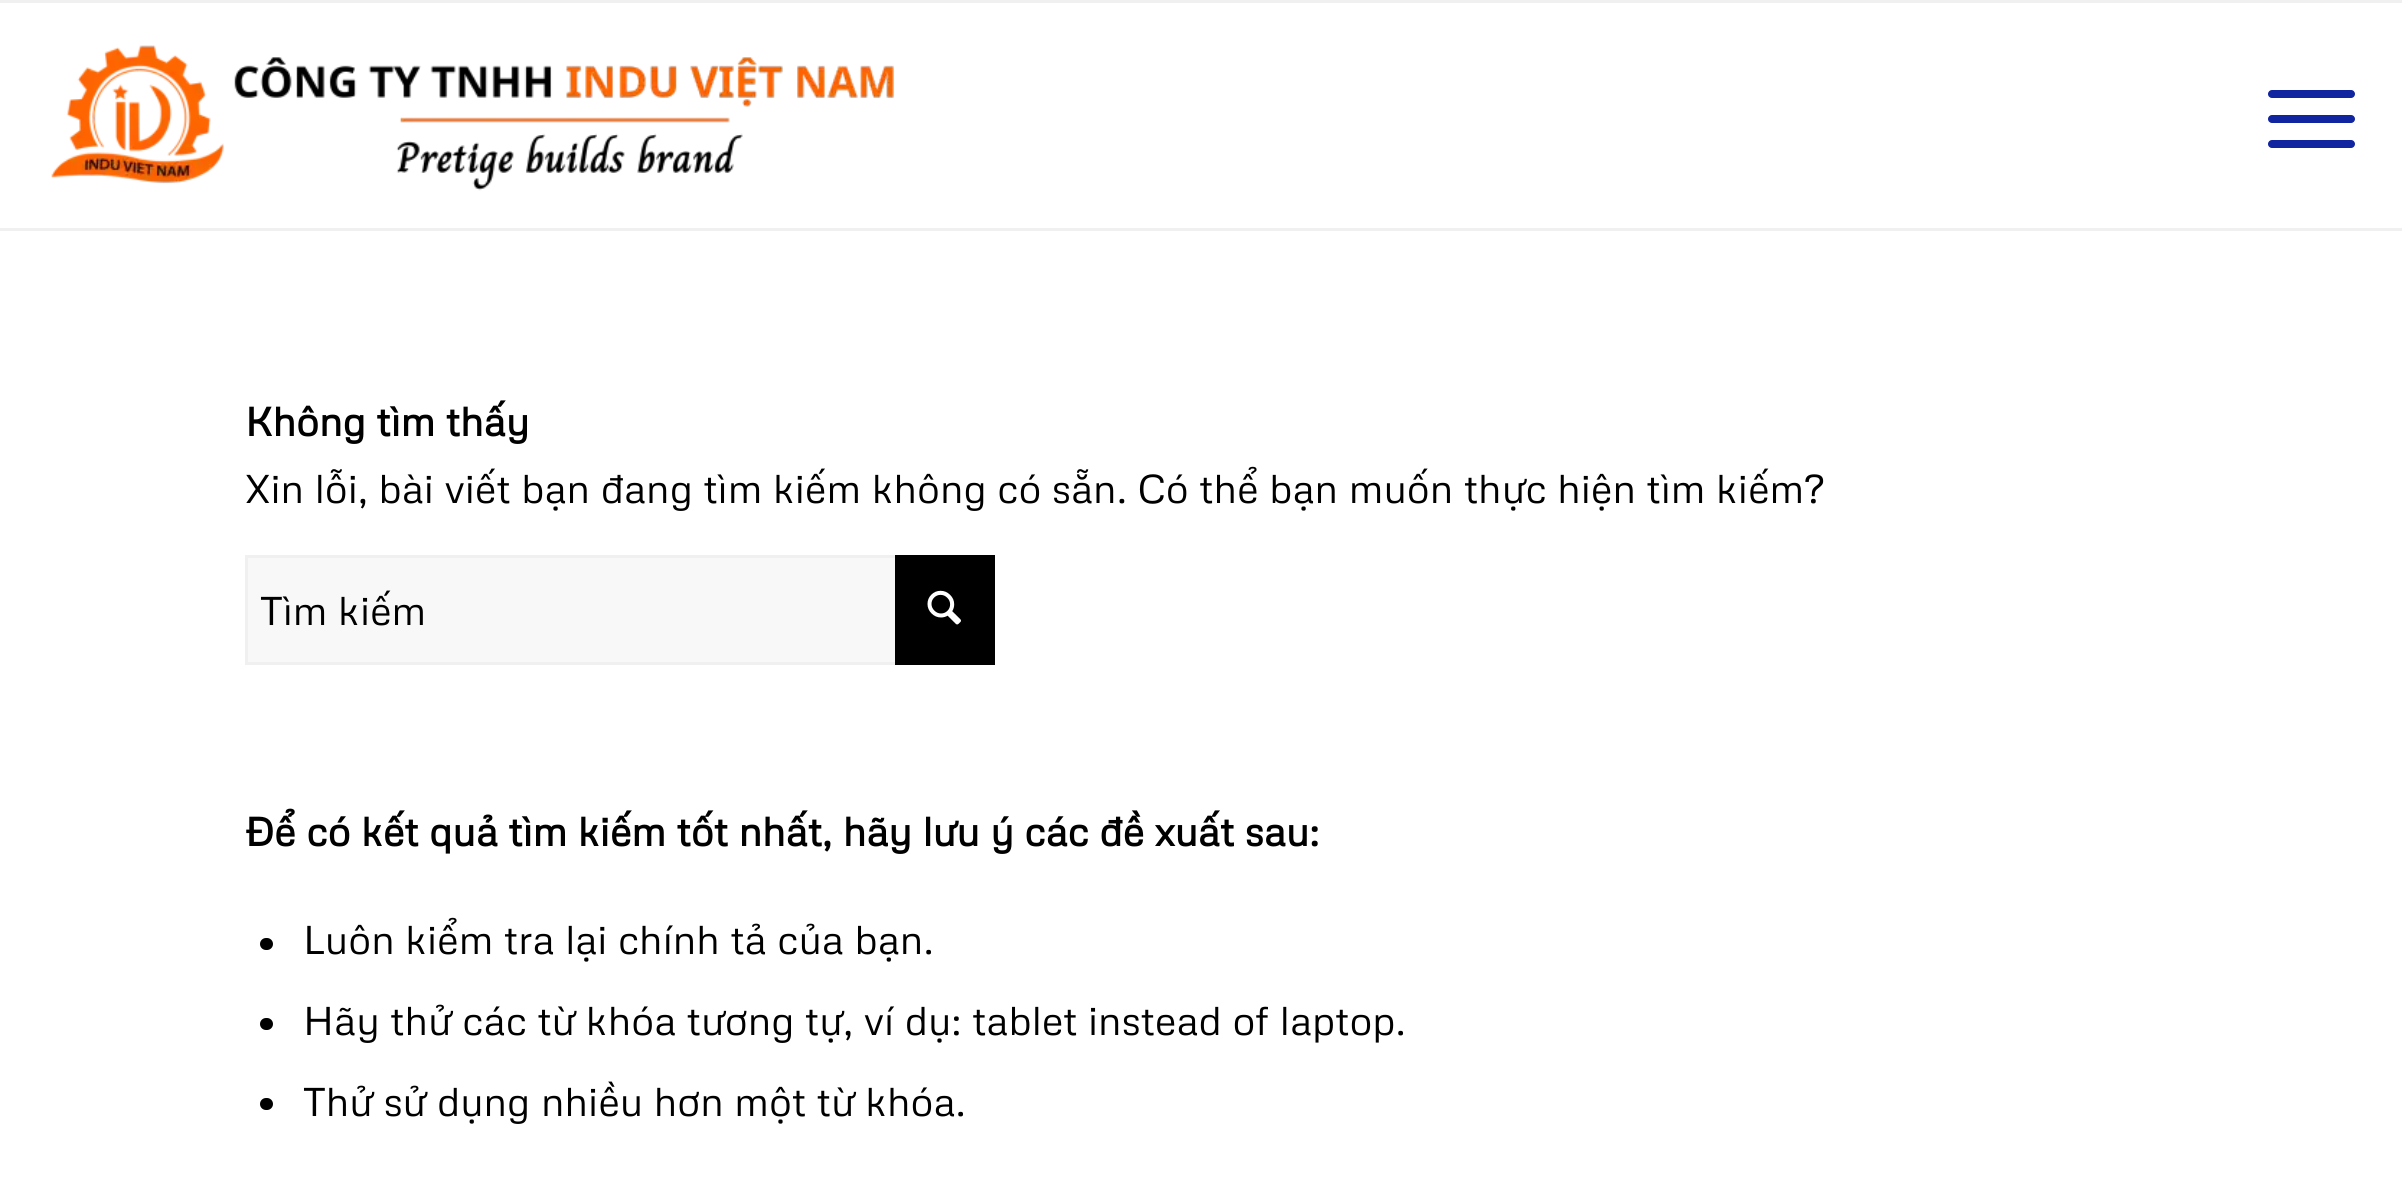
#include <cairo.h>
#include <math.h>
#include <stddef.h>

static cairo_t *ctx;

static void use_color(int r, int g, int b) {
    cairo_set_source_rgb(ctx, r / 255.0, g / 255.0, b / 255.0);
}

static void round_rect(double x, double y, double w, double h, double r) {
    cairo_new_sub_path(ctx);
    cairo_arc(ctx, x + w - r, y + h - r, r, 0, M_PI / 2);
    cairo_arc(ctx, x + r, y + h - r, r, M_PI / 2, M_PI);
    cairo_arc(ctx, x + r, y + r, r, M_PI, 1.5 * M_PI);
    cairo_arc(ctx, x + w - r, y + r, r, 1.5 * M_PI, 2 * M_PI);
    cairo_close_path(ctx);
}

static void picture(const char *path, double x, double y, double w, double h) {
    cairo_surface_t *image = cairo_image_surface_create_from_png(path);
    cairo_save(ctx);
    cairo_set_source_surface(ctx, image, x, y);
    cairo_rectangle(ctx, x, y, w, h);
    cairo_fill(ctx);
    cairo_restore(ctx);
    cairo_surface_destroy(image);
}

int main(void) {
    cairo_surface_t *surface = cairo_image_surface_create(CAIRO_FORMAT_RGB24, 2402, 1203);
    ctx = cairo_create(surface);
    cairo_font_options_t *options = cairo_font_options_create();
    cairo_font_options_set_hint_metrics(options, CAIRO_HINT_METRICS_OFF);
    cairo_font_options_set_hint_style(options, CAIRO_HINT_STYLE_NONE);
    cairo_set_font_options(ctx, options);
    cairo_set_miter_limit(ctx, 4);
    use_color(255, 255, 255);
    cairo_paint(ctx);
    use_color(240, 240, 240);
    cairo_rectangle(ctx, 0, 0, 2402, 3);
    cairo_fill(ctx);
    cairo_rectangle(ctx, 0, 228, 2402, 3);
    cairo_fill(ctx);
    picture("img1.png", 51, 45, 843, 146);
    use_color(18, 37, 160);
    round_rect(2268, 115, 87, 8, 4);
    cairo_fill(ctx);
    round_rect(2268, 90, 87, 8, 4);
    cairo_fill(ctx);
    round_rect(2268, 140, 87, 8, 4);
    cairo_fill(ctx);
    cairo_select_font_face(ctx, "Metrophobic", CAIRO_FONT_SLANT_NORMAL, CAIRO_FONT_WEIGHT_BOLD);
    cairo_set_font_size(ctx, 40);
    use_color(0, 0, 0);
    cairo_move_to(ctx, 245, 436);
    cairo_show_text(ctx, "Không tìm thấy");
    cairo_select_font_face(ctx, "Metrophobic", CAIRO_FONT_SLANT_NORMAL, CAIRO_FONT_WEIGHT_NORMAL);
    cairo_move_to(ctx, 245, 503);
    cairo_show_text(ctx, "Xin lỗi, bài viết bạn đang tìm kiếm không có sẵn. Có thể bạn muốn thực hiện tìm kiếm?");
    use_color(248, 248, 248);
    cairo_rectangle(ctx, 248, 558, 647, 104);
    cairo_fill(ctx);
    cairo_rectangle(ctx, 246.5, 556.5, 747, 107);
    use_color(240, 240, 240);
    cairo_set_line_width(ctx, 3);
    cairo_stroke(ctx);
    use_color(0, 0, 0);
    cairo_move_to(ctx, 260, 625);
    cairo_show_text(ctx, "Tìm kiếm");
    cairo_rectangle(ctx, 895, 555, 100, 110);
    cairo_fill(ctx);
    picture("img2.png", 927, 590, 34, 35);
    cairo_select_font_face(ctx, "Metrophobic", CAIRO_FONT_SLANT_NORMAL, CAIRO_FONT_WEIGHT_BOLD);
    cairo_move_to(ctx, 245, 846);
    cairo_show_text(ctx, "Để có kết quả tìm kiếm tốt nhất, hãy lưu ý các đề xuất sau:");
    round_rect(260, 938, 13, 12, 6);
    cairo_fill(ctx);
    cairo_select_font_face(ctx, "Metrophobic", CAIRO_FONT_SLANT_NORMAL, CAIRO_FONT_WEIGHT_NORMAL);
    cairo_move_to(ctx, 303, 954);
    cairo_show_text(ctx, "Luôn kiểm tra lại chính tả của bạn.");
    round_rect(260, 1018, 13, 12, 6);
    cairo_fill(ctx);
    cairo_move_to(ctx, 303, 1035);
    cairo_show_text(ctx, "Hãy thử các từ khóa tương tự, ví dụ: tablet instead of laptop.");
    round_rect(260, 1098, 13, 12, 6);
    cairo_fill(ctx);
    cairo_move_to(ctx, 303, 1116);
    cairo_show_text(ctx, "Thử sử dụng nhiều hơn một từ khóa.");
    cairo_surface_write_to_png(surface, "result.png");
    cairo_font_options_destroy(options);
    cairo_destroy(ctx);
    cairo_surface_destroy(surface);
    return 0;
}
